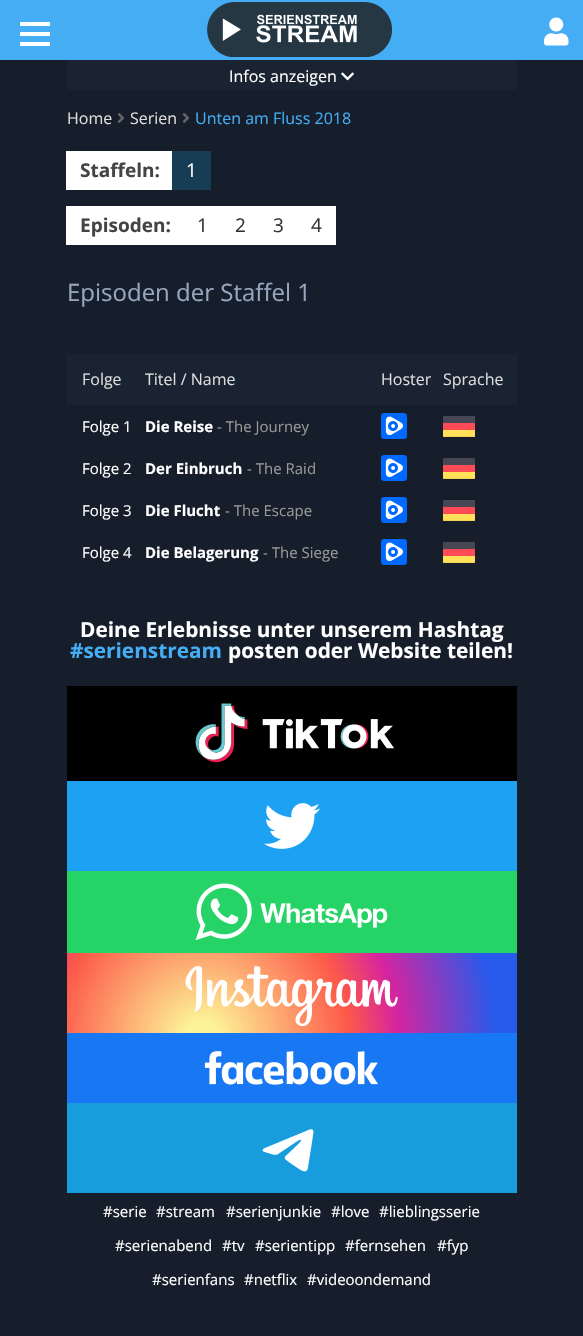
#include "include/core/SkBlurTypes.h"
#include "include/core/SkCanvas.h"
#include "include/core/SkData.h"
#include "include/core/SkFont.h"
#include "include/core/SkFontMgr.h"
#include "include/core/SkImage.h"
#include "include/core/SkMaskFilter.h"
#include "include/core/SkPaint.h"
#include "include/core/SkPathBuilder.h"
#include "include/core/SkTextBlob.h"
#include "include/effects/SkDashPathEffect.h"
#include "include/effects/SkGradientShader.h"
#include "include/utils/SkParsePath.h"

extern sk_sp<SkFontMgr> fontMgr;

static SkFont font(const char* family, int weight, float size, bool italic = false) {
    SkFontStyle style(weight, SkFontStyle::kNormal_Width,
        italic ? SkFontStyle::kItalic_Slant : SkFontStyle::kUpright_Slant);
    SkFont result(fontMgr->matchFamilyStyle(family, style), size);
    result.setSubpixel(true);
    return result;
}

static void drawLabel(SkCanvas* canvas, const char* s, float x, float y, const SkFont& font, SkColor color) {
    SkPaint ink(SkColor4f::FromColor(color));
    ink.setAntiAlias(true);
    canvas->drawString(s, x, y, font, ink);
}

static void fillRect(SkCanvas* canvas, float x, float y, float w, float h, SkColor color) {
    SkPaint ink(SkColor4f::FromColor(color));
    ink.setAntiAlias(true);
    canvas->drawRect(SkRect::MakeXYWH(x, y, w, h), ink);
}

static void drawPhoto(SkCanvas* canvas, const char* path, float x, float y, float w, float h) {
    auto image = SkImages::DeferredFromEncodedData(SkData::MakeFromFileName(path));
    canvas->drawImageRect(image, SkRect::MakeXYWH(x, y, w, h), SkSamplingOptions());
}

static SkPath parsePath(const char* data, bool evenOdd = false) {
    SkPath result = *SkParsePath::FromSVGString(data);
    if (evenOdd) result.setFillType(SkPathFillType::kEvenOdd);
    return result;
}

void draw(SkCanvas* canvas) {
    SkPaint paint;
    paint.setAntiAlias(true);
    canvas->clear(0xFF151E2A);
    fillRect(canvas, 0, 0, 583, 60, 0xFF44ADF3);
    fillRect(canvas, 20, 22, 30, 4, 0xFFFFFFFF);
    fillRect(canvas, 20, 32, 30, 4, 0xFFFFFFFF);
    fillRect(canvas, 20, 42, 30, 4, 0xFFFFFFFF);
    drawPhoto(canvas, "assets/img1.png", 207, 2, 185, 55);
    drawPhoto(canvas, "assets/img2.png", 544, 17, 25, 29);
    paint.setColor(0xFF192332);
    canvas->drawPath(parsePath("M67 60H517V86C517 88 515 90 513 90H71C69 90 67 88 67 86Z"), paint);
    SkFont font1 = font("Open Sans", 400, 16);
    drawLabel(canvas, "Infos anzeigen", 229, 82, font1, 0xFFFFFFFF);
    drawPhoto(canvas, "assets/img3.png", 341, 72, 13, 9);
    drawLabel(canvas, "Home", 67, 124, font1, 0xFFDDDDDD);
    drawPhoto(canvas, "assets/img4.png", 117, 113, 8, 10);
    drawLabel(canvas, "Serien", 130, 124, font1, 0xFFDDDDDD);
    drawPhoto(canvas, "assets/img4.png", 182, 113, 8, 10);
    drawLabel(canvas, "Unten am Fluss 2018", 195, 124, font1, 0xFF44ADF3);
    fillRect(canvas, 66, 151, 106, 39, 0xFFFFFFFF);
    SkFont font2 = font("Open Sans", 700, 19);
    drawLabel(canvas, "Staffeln:", 80, 177, font2, 0xFF444444);
    fillRect(canvas, 172, 151, 39, 39, 0xFF173D54);
    SkFont font3 = font("Open Sans", 400, 19);
    drawLabel(canvas, "1", 186, 177, font3, 0xFFFFFFFF);
    fillRect(canvas, 66, 206, 270, 39, 0xFFFFFFFF);
    drawLabel(canvas, "Episoden:", 80, 232, font2, 0xFF444444);
    drawLabel(canvas, "1", 197, 232, font3, 0xFF333333);
    drawLabel(canvas, "2", 235, 232, font3, 0xFF333333);
    drawLabel(canvas, "3", 273, 232, font3, 0xFF333333);
    drawLabel(canvas, "4", 311, 232, font3, 0xFF333333);
    SkFont font4 = font("Open Sans", 400, 24);
    drawLabel(canvas, "Episoden der Staffel 1", 67, 301, font4, 0xFF98A7C0);
    fillRect(canvas, 67, 354, 450, 51, 0xFF192332);
    drawLabel(canvas, "Folge", 82, 385, font1, 0xFFDDDDDD);
    drawLabel(canvas, "Titel / Name", 145, 385, font1, 0xFFDDDDDD);
    drawLabel(canvas, "Hoster", 381, 385, font1, 0xFFDDDDDD);
    drawLabel(canvas, "Sprache", 443, 385, font1, 0xFFDDDDDD);
    SkFont font5 = font("Open Sans", 400, 15);
    drawLabel(canvas, "Folge 1", 82, 432, font5, 0xFFFFFFFF);
    SkFont font6 = font("Open Sans", 700, 15);
    drawLabel(canvas, "Die Reise", 145, 432, font6, 0xFFFFFFFF);
    drawLabel(canvas, "- The Journey", 217, 432, font5, 0xFF999999);
    drawPhoto(canvas, "assets/img5.png", 381, 413, 26, 26);
    drawPhoto(canvas, "assets/img6.png", 443, 416, 32, 21);
    drawLabel(canvas, "Folge 2", 82, 474, font5, 0xFFFFFFFF);
    drawLabel(canvas, "Der Einbruch", 145, 474, font6, 0xFFFFFFFF);
    drawLabel(canvas, "- The Raid", 247, 474, font5, 0xFF999999);
    drawPhoto(canvas, "assets/img5.png", 381, 455, 26, 26);
    drawPhoto(canvas, "assets/img6.png", 443, 458, 32, 21);
    drawLabel(canvas, "Folge 3", 82, 516, font5, 0xFFFFFFFF);
    drawLabel(canvas, "Die Flucht", 145, 516, font6, 0xFFFFFFFF);
    drawLabel(canvas, "- The Escape", 225, 516, font5, 0xFF999999);
    drawPhoto(canvas, "assets/img5.png", 381, 497, 26, 26);
    drawPhoto(canvas, "assets/img6.png", 443, 500, 32, 21);
    drawLabel(canvas, "Folge 4", 82, 558, font5, 0xFFFFFFFF);
    drawLabel(canvas, "Die Belagerung", 145, 558, font6, 0xFFFFFFFF);
    drawLabel(canvas, "- The Siege", 263, 558, font5, 0xFF999999);
    drawPhoto(canvas, "assets/img5.png", 381, 539, 26, 26);
    drawPhoto(canvas, "assets/img6.png", 443, 542, 32, 21);
    SkFont font7 = font("Open Sans", 700, 20.8f);
    drawLabel(canvas, "Deine Erlebnisse unter unserem Hashtag", 80, 637, font7, 0xFFFFFFFF);
    drawLabel(canvas, "#serienstream", 70, 658, font7, 0xFF44ADF3);
    drawLabel(canvas, "posten oder Website teilen!", 228, 658, font7, 0xFFFFFFFF);
    fillRect(canvas, 67, 686, 450, 95, 0xFF000000);
    drawPhoto(canvas, "assets/img7.png", 195, 703, 200, 60);
    fillRect(canvas, 67, 781, 450, 90, 0xFF1DA1F2);
    drawPhoto(canvas, "assets/img8.png", 264, 803, 56, 46);
    fillRect(canvas, 67, 871, 450, 82, 0xFF25D366);
    drawPhoto(canvas, "assets/img9.png", 195, 883, 193, 58);
    {
        const SkColor colors[] = {0xFFFDF497, 0xFFFDF497, 0xFFFD5949, 0xFFD6249F, 0xFF285AEB};
        const float stops[] = {0, 0.05f, 0.45f, 0.6f, 0.9f};
        paint.setShader(SkGradientShader::MakeRadial({202, 1039}, 326, colors, stops, 5, SkTileMode::kClamp));
        paint.setAlpha(255);
    }
    canvas->drawRect(SkRect::MakeXYWH(67, 953, 450, 80), paint);
    drawPhoto(canvas, "assets/img10.png", 185, 965, 213, 62);
    fillRect(canvas, 67, 1033, 450, 70, 0xFF1877F2);
    drawPhoto(canvas, "assets/img11.png", 204, 1051, 174, 34);
    fillRect(canvas, 67, 1103, 450, 90, 0xFF179CDE);
    drawPhoto(canvas, "assets/img12.png", 262, 1129, 52, 43);
    drawLabel(canvas, "#serie", 103, 1217, font5, 0xFFFFFFFF);
    drawLabel(canvas, "#stream", 156, 1217, font5, 0xFFFFFFFF);
    drawLabel(canvas, "#serienjunkie", 226, 1217, font5, 0xFFFFFFFF);
    drawLabel(canvas, "#love", 331, 1217, font5, 0xFFFFFFFF);
    drawLabel(canvas, "#lieblingsserie", 379, 1217, font5, 0xFFFFFFFF);
    drawLabel(canvas, "#serienabend", 115, 1251, font5, 0xFFFFFFFF);
    drawLabel(canvas, "#tv", 222, 1251, font5, 0xFFFFFFFF);
    drawLabel(canvas, "#serientipp", 255, 1251, font5, 0xFFFFFFFF);
    drawLabel(canvas, "#fernsehen", 345, 1251, font5, 0xFFFFFFFF);
    drawLabel(canvas, "#fyp", 437, 1251, font5, 0xFFFFFFFF);
    drawLabel(canvas, "#serienfans", 152, 1285, font5, 0xFFFFFFFF);
    drawLabel(canvas, "#netflix", 244, 1285, font5, 0xFFFFFFFF);
    drawLabel(canvas, "#videoondemand", 307, 1285, font5, 0xFFFFFFFF);
}
